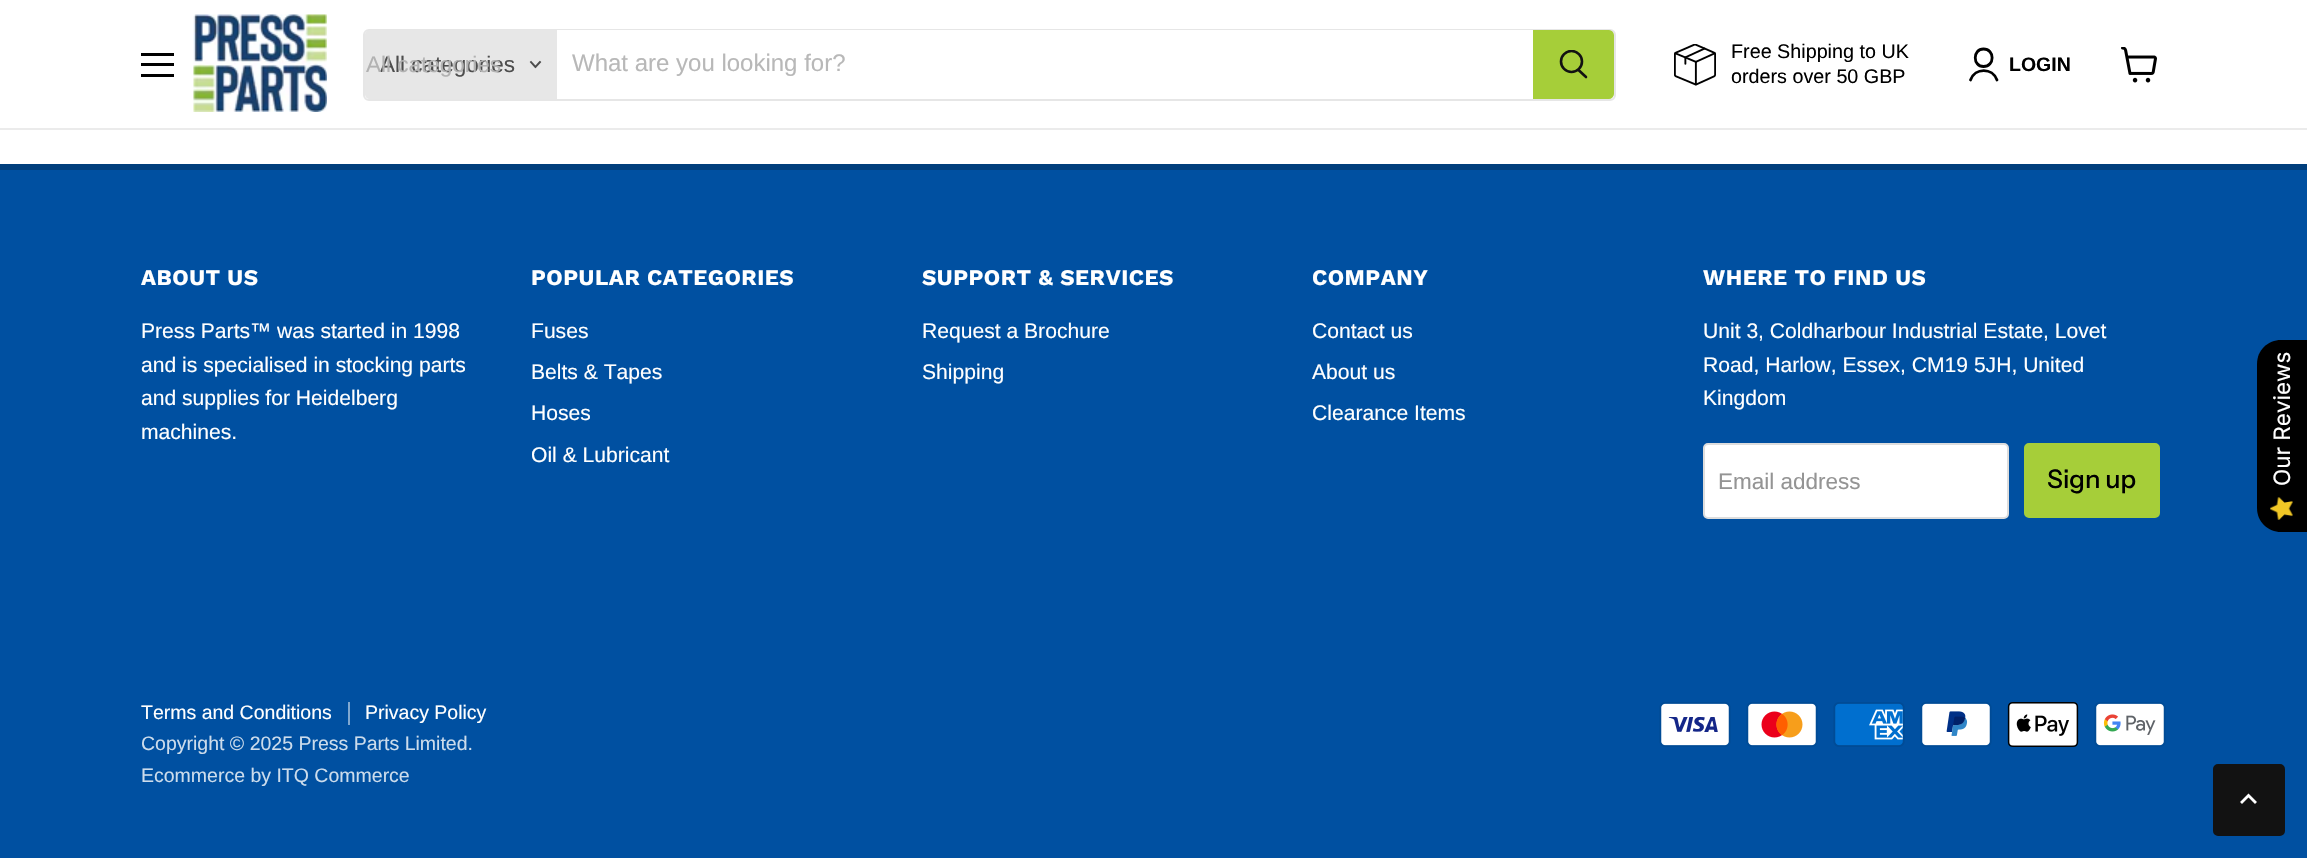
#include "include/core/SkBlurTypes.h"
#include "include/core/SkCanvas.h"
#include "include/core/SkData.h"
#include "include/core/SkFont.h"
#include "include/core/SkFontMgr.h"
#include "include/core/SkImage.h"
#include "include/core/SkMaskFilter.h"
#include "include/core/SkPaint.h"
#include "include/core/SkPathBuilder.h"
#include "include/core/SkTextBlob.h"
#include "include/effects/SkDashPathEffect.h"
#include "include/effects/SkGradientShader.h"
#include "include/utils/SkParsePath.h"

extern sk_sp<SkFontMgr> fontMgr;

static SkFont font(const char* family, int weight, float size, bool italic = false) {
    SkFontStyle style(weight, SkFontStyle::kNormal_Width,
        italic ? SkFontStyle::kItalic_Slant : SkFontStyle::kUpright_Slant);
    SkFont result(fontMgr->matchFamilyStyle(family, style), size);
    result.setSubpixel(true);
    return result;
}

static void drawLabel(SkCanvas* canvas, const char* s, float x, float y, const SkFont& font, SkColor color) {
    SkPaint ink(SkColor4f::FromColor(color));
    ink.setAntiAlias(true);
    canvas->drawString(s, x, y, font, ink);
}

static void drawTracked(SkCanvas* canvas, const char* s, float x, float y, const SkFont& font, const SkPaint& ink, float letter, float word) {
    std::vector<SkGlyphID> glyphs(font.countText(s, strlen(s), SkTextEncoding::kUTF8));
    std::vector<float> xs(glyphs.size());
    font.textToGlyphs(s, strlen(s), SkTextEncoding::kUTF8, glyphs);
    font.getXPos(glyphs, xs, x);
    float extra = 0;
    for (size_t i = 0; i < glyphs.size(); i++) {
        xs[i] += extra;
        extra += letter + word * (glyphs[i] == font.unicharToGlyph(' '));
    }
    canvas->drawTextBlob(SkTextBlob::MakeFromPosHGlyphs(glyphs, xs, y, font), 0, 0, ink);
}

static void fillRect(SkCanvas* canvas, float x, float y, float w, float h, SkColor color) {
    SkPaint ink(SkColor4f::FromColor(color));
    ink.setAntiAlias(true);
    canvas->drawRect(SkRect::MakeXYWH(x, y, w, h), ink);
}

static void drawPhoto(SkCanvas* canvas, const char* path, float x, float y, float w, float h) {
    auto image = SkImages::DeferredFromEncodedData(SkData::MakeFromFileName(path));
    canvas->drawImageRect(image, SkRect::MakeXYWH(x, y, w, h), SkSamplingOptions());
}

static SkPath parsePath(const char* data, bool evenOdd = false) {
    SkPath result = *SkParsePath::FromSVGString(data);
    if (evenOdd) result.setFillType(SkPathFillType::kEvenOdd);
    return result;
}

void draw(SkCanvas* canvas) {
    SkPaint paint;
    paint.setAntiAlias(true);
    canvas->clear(0xFFFFFFFF);
    fillRect(canvas, 0, 128, 2307, 2, 0xFFEBEBEB);
    fillRect(canvas, 141, 53, 33, 3, 0xFF000000);
    fillRect(canvas, 141, 63, 33, 3, 0xFF000000);
    fillRect(canvas, 141, 74, 33, 3, 0xFF000000);
    drawPhoto(canvas, "assets/img1.png", 193, 14, 134, 98);
    paint.setStroke(true);
    paint.setStrokeWidth(2);
    paint.setColor(0xFFE6E6E6);
    canvas->drawRoundRect(SkRect::MakeXYWH(364, 30, 1251, 70), 5, 5, paint);
    paint.setStroke(false);
    paint.setColor(0xFFE7E7E7);
    canvas->drawPath(parsePath("M370 30H557V99H370C367 99 365 97 365 94V35C365 32 367 30 370 30Z"), paint);
    SkFont font1 = font("Liberation Sans", 400, 22.5f);
    drawLabel(canvas, "All categories", 380, 72, font1, 0xFF4D4D4D);
    drawLabel(canvas, "All categories", 366, 72, font1, 0xFFB2B2B2);
    paint.setStroke(true);
    paint.setStrokeWidth(1.9f);
    paint.setStrokeCap(SkPaint::kSquare_Cap);
    paint.setColor(0xFF4D4D4D);
    canvas->drawPath(parsePath("M535.5 67L540 62M535.5 67L531 62"), paint);
    fillRect(canvas, 557, 30, 976, 1, 0xFFFFFFFF);
    SkFont font2 = font("Liberation Sans", 400, 24);
    drawLabel(canvas, "What are you looking for?", 572, 71, font2, 0xFFB8B8B8);
    paint.setStroke(false);
    paint.setColor(0xFFA6CE39);
    canvas->drawPath(parsePath("M1534 31H1609C1611 31 1613 33 1613 35V94C1613 96 1611 98 1609 98H1534Z"), paint);
    paint.setStroke(true);
    paint.setStrokeWidth(2);
    paint.setStrokeCap(SkPaint::kButt_Cap);
    canvas->drawPath(parsePath("M1534 31H1609C1611 31 1613 33 1613 35V94C1613 96 1611 98 1609 98H1534Z"), paint);
    paint.setStrokeWidth(2.6f);
    paint.setStrokeCap(SkPaint::kRound_Cap);
    paint.setColor(0xFF121212);
    canvas->drawPath(parsePath("M1586 77L1578.5 70"), paint);
    canvas->save();
    canvas->clipRect(SkRect::MakeXYWH(1559, 50, 30, 31));
    paint.setStrokeCap(SkPaint::kButt_Cap);
    canvas->drawCircle(1571.5f, 61.5f, 10.5f, paint);
    canvas->restore();
    drawPhoto(canvas, "assets/img2.png", 1674, 44, 42, 42);
    SkFont font3 = font("Liberation Sans", 400, 19.75f);
    drawLabel(canvas, "Free Shipping to UK", 1731, 58, font3, 0xFF000000);
    drawLabel(canvas, "orders over 50 GBP", 1731, 83, font3, 0xFF000000);
    paint.setStrokeWidth(2.8f);
    paint.setStrokeCap(SkPaint::kRound_Cap);
    paint.setStrokeJoin(SkPaint::kRound_Join);
    paint.setColor(0xFF000000);
    canvas->drawPath(parsePath("M1983.5 66.5C1995 66.5 1995 49 1983.5 49C1972.5 49 1972.5 66.5 1983.5 66.5ZM1997 80C1992.5 67.5 1975 67.5 1970.5 80"), paint);
    SkFont font4 = font("Liberation Sans", 700, 19.5f);
    drawLabel(canvas, "LOGIN", 2009, 71, font4, 0xFF000000);
    drawPhoto(canvas, "assets/img3.png", 2121, 47, 36, 36);
    fillRect(canvas, 0, 170, 2307, 688, 0xFF0050A1);
    fillRect(canvas, 0, 164, 2307, 6, 0xFF003E7C);
    SkFont font5 = font("Work Sans", 700, 22.25f);
    paint.setStroke(false);
    paint.setColor(0xFFFFFFFF);
    drawTracked(canvas, "ABOUT US", 141, 285, font5, paint, 0.5f, 0);
    SkFont font6 = font("Liberation Sans", 400, 21.1f);
    drawLabel(canvas, "Press Parts™ was started in 1998", 141, 338, font6, 0xFFFFFFFF);
    drawLabel(canvas, "and is specialised in stocking parts", 141, 372, font6, 0xFFFFFFFF);
    drawLabel(canvas, "and supplies for Heidelberg", 141, 405, font6, 0xFFFFFFFF);
    drawLabel(canvas, "machines.", 141, 439, font6, 0xFFFFFFFF);
    drawTracked(canvas, "POPULAR CATEGORIES", 531, 285, font5, paint, 0.5f, 0);
    drawLabel(canvas, "Fuses", 531, 338, font6, 0xFFFFFFFF);
    drawLabel(canvas, "Belts & Tapes", 531, 379, font6, 0xFFFFFFFF);
    drawLabel(canvas, "Hoses", 531, 420, font6, 0xFFFFFFFF);
    drawLabel(canvas, "Oil & Lubricant", 531, 462, font6, 0xFFFFFFFF);
    drawTracked(canvas, "SUPPORT & SERVICES", 922, 285, font5, paint, 0.5f, 0);
    drawLabel(canvas, "Request a Brochure", 922, 338, font6, 0xFFFFFFFF);
    drawLabel(canvas, "Shipping", 922, 379, font6, 0xFFFFFFFF);
    drawTracked(canvas, "COMPANY", 1312, 285, font5, paint, 0.5f, 0);
    drawLabel(canvas, "Contact us", 1312, 338, font6, 0xFFFFFFFF);
    drawLabel(canvas, "About us", 1312, 379, font6, 0xFFFFFFFF);
    drawLabel(canvas, "Clearance Items", 1312, 420, font6, 0xFFFFFFFF);
    drawTracked(canvas, "WHERE TO FIND US", 1703, 285, font5, paint, 0.5f, 0);
    drawLabel(canvas, "Unit 3, Coldharbour Industrial Estate, Lovet", 1703, 338, font6, 0xFFFFFFFF);
    drawLabel(canvas, "Road, Harlow, Essex, CM19 5JH, United", 1703, 372, font6, 0xFFFFFFFF);
    drawLabel(canvas, "Kingdom", 1703, 405, font6, 0xFFFFFFFF);
    canvas->drawRoundRect(SkRect::MakeXYWH(1704, 444, 304, 74), 4, 4, paint);
    paint.setStroke(true);
    paint.setStrokeWidth(2);
    paint.setStrokeCap(SkPaint::kButt_Cap);
    paint.setStrokeJoin(SkPaint::kMiter_Join);
    paint.setColor(0xFFDDDDDD);
    canvas->drawRoundRect(SkRect::MakeXYWH(1704, 444, 304, 74), 4, 4, paint);
    drawLabel(canvas, "Email address", 1718, 489, font1, 0xFF949494);
    paint.setStroke(false);
    paint.setColor(0xFFA6CE39);
    canvas->drawRoundRect(SkRect::MakeXYWH(2025, 444, 134, 73), 4, 4, paint);
    paint.setStroke(true);
    canvas->drawRoundRect(SkRect::MakeXYWH(2025, 444, 134, 73), 4, 4, paint);
    SkFont font7 = font("Instrument Sans", 500, 25.5f);
    drawLabel(canvas, "Sign up", 2047, 488, font7, 0xFF000000);
    fillRect(canvas, 348, 702, 2, 23, 0xFF80A8D0);
    SkFont font8 = font("Liberation Sans", 400, 19.5f);
    drawLabel(canvas, "Terms and Conditions", 141, 719, font8, 0xFFFFFFFF);
    drawLabel(canvas, "Privacy Policy", 365, 719, font8, 0xFFFFFFFF);
    drawLabel(canvas, "Copyright © 2025 Press Parts Limited.", 141, 750, font8, 0xFFCCDCEC);
    drawLabel(canvas, "Ecommerce by ITQ Commerce", 141, 782, font8, 0xFFCCDCEC);
    drawPhoto(canvas, "assets/img4.png", 1659, 702, 72, 45);
    drawPhoto(canvas, "assets/img5.png", 1746, 702, 72, 45);
    drawPhoto(canvas, "assets/img6.png", 1833, 702, 72, 45);
    drawPhoto(canvas, "assets/img7.png", 1920, 702, 72, 45);
    drawPhoto(canvas, "assets/img8.png", 2007, 702, 72, 45);
    drawPhoto(canvas, "assets/img9.png", 2094, 702, 72, 45);
    paint.setStroke(false);
    paint.setColor(0xFF000000);
    canvas->drawPath(parsePath("M2257 508V364C2257 350 2268 340 2281 340H2307V532H2281C2268 532 2257 522 2257 508Z"), paint);
    SkFont font9 = font("Inter", 400, 22.5f);
    canvas->save();
    canvas->rotate(-90, 2290, 486);
    drawLabel(canvas, "Our Reviews", 2290, 486, font9, 0xFFFFFFFF);
    canvas->restore();
    drawPhoto(canvas, "assets/img10.png", 2270, 497, 23, 23);
    paint.setColor(0xFF121212);
    canvas->drawRoundRect(SkRect::MakeXYWH(2214, 765, 70, 70), 4, 4, paint);
    paint.setStroke(true);
    canvas->drawRoundRect(SkRect::MakeXYWH(2214, 765, 70, 70), 4, 4, paint);
    paint.setStrokeWidth(2.8f);
    paint.setStrokeCap(SkPaint::kSquare_Cap);
    paint.setColor(0xFFFFFFFF);
    canvas->drawPath(parsePath("M2248.5 795.5L2242 802M2248.5 795.5L2255 802"), paint);
}
